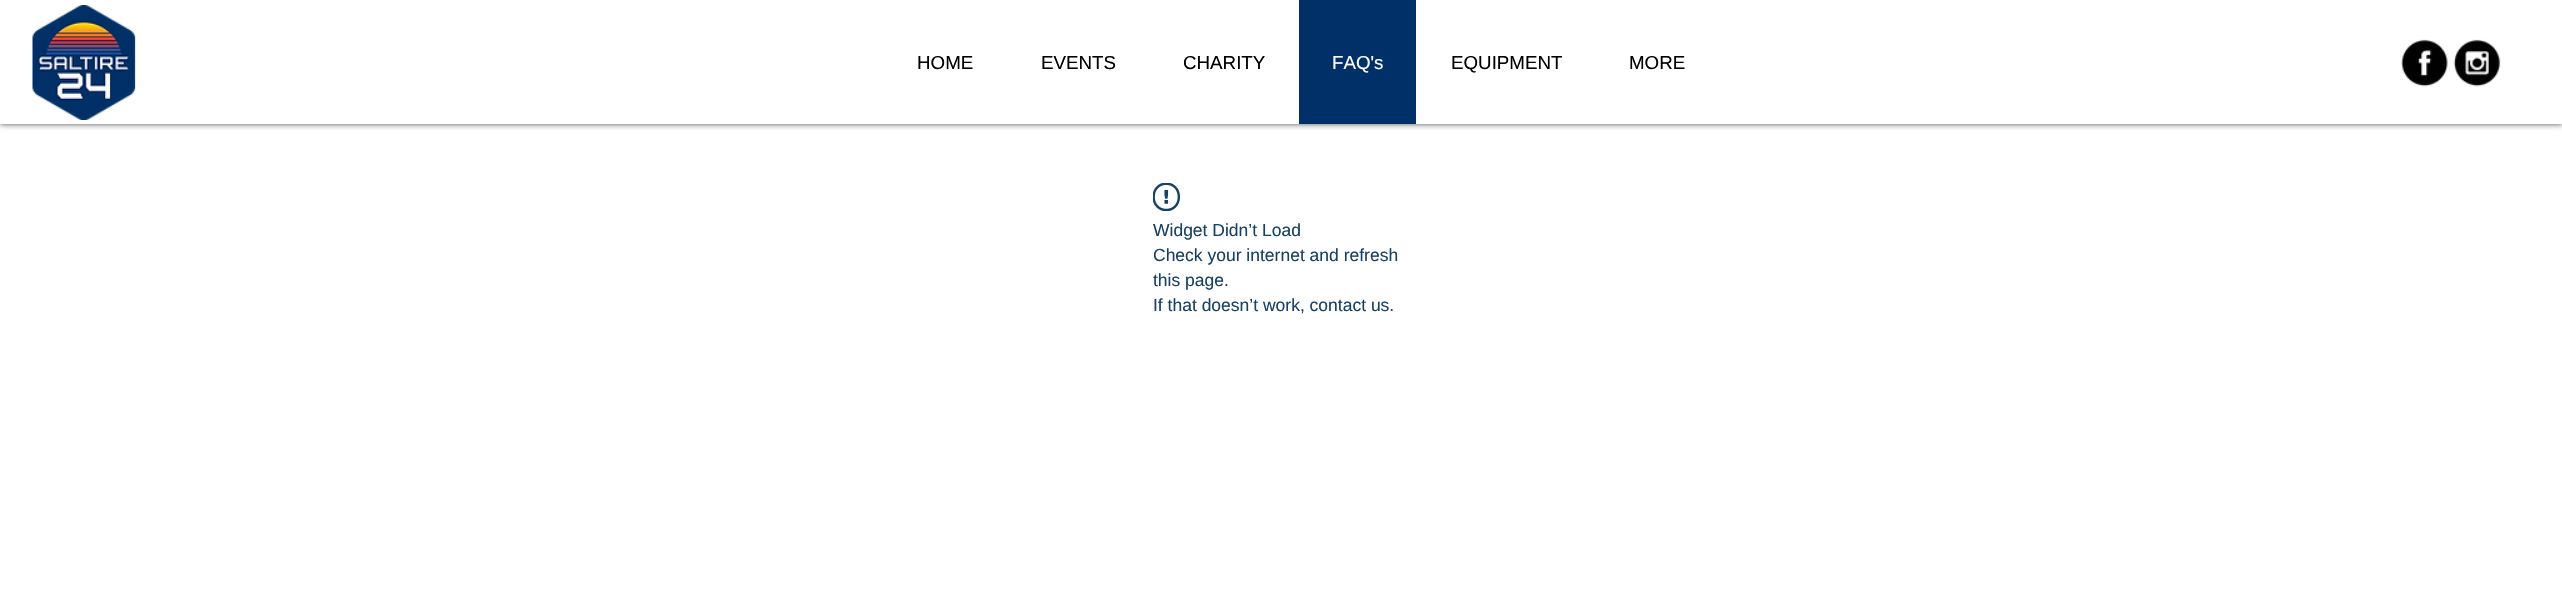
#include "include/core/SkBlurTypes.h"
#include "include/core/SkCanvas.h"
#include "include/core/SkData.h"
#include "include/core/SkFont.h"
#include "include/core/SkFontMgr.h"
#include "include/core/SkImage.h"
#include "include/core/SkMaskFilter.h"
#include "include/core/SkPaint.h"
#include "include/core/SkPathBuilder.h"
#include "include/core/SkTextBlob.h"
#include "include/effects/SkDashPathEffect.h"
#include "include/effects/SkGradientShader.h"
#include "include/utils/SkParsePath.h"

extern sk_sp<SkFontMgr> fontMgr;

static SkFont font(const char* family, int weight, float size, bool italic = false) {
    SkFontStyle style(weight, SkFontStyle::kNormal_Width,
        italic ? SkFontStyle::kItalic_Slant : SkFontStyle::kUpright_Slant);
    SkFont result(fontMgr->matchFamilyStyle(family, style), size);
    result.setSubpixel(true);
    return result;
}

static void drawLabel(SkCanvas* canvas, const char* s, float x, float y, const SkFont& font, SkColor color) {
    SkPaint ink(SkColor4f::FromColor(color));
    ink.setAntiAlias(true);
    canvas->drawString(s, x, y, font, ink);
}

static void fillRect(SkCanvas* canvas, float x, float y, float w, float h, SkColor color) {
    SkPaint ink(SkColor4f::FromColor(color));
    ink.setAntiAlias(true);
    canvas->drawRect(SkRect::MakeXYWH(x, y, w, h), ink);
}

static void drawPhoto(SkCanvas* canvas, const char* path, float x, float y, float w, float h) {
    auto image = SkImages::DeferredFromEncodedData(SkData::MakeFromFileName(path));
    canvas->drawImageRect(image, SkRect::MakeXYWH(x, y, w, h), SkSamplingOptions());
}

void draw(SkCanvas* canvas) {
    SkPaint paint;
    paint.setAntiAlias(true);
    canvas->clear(0xFFFFFFFF);
    paint.setColor(0xB3000000);
    paint.setMaskFilter(SkMaskFilter::MakeBlur(kNormal_SkBlurStyle, 3));
    canvas->drawRect(SkRect::MakeXYWH(0, 0, 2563, 124), paint);
    paint.setMaskFilter(nullptr);
    fillRect(canvas, 0, 0, 2562, 124, 0xFFFFFFFF);
    drawPhoto(canvas, "assets/img1.png", 32, 5, 104, 115);
    SkFont font1 = font("Liberation Sans", 400, 18.75f);
    drawLabel(canvas, "HOME", 917, 69, font1, 0xFF000000);
    drawLabel(canvas, "EVENTS", 1041, 69, font1, 0xFF000000);
    drawLabel(canvas, "CHARITY", 1183, 69, font1, 0xFF000000);
    fillRect(canvas, 1299, 0, 117, 124, 0xFF003067);
    drawLabel(canvas, "FAQ's", 1332, 69, font1, 0xFFFFFFFF);
    drawLabel(canvas, "EQUIPMENT", 1451, 69, font1, 0xFF000000);
    drawLabel(canvas, "MORE", 1629, 69, font1, 0xFF000000);
    drawPhoto(canvas, "assets/img2.png", 2401, 39, 47, 48);
    drawPhoto(canvas, "assets/img3.png", 2453, 39, 48, 48);
    drawPhoto(canvas, "assets/img4.png", 1153, 183, 27, 28);
    SkFont font2 = font("Liberation Sans", 400, 17.5f);
    drawLabel(canvas, "Widget Didn’t Load", 1153, 236, font2, 0xFF174165);
    drawLabel(canvas, "Check your internet and refresh", 1153, 261, font2, 0xFF174165);
    drawLabel(canvas, "this page.", 1153, 286, font2, 0xFF174165);
    drawLabel(canvas, "If that doesn’t work, contact us.", 1153, 311, font2, 0xFF174165);
}
